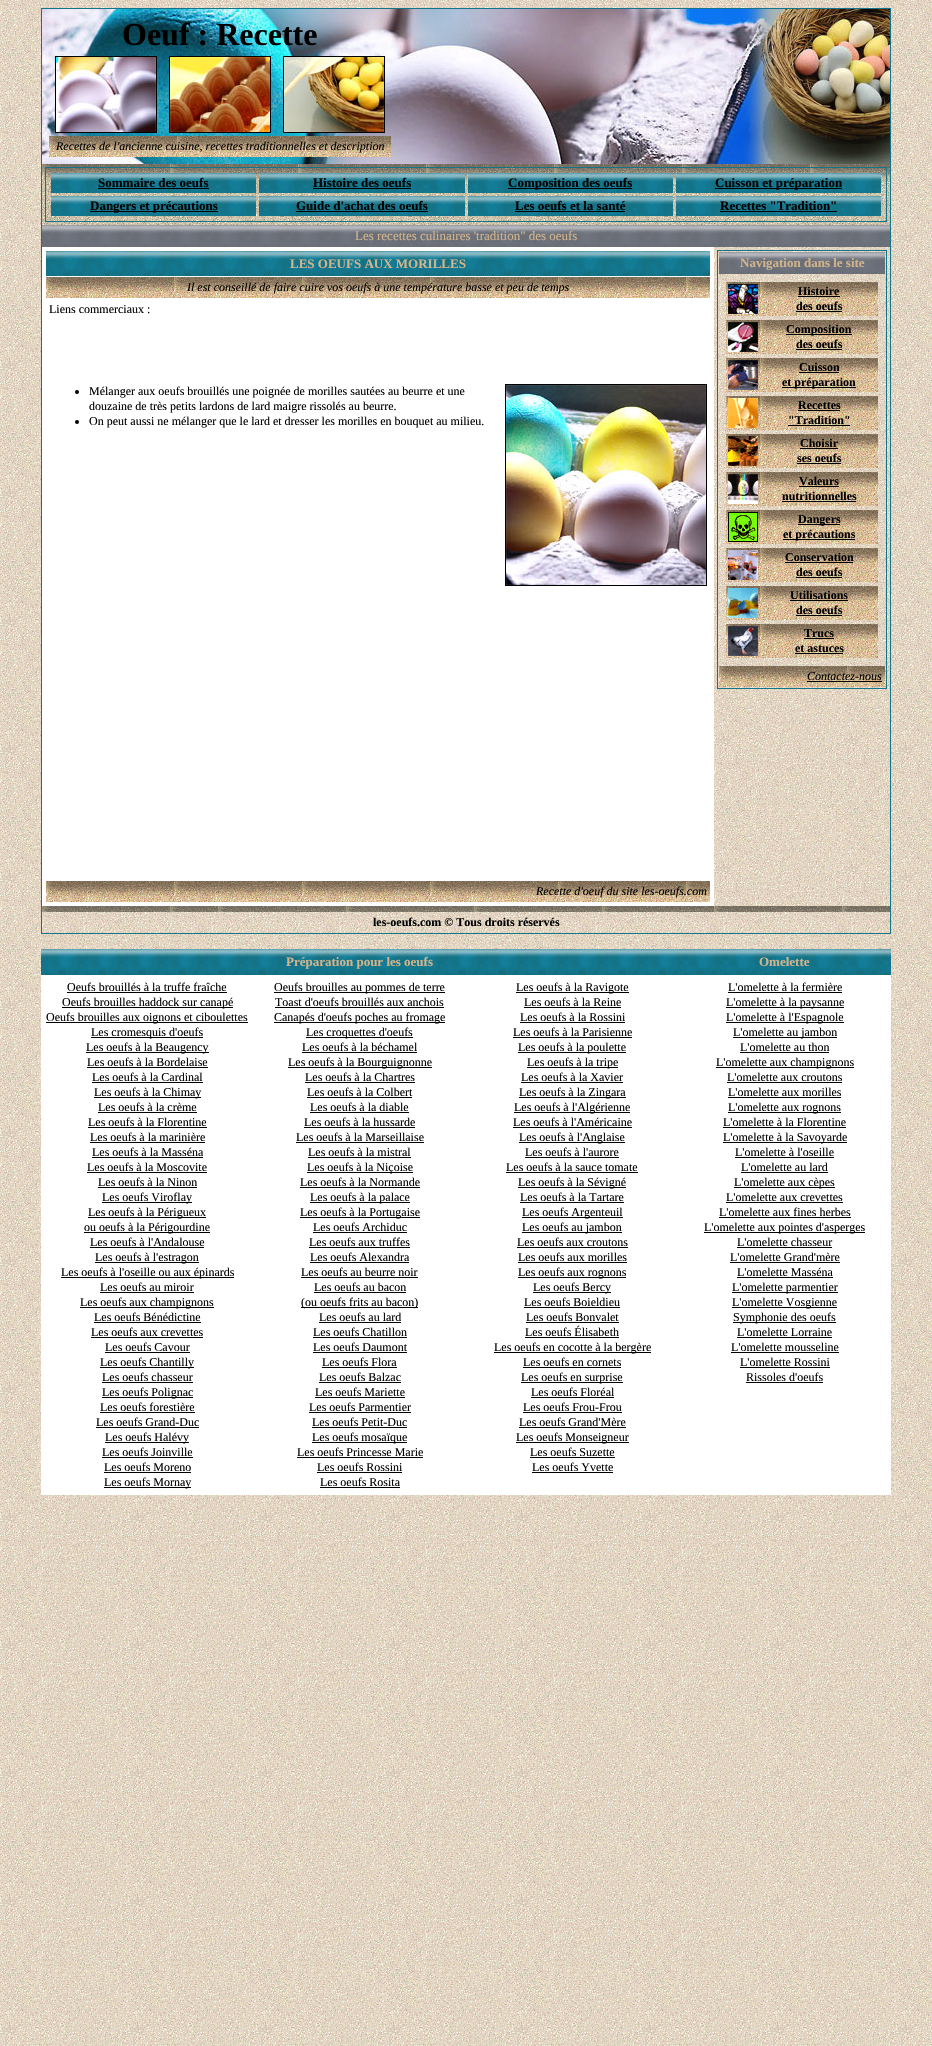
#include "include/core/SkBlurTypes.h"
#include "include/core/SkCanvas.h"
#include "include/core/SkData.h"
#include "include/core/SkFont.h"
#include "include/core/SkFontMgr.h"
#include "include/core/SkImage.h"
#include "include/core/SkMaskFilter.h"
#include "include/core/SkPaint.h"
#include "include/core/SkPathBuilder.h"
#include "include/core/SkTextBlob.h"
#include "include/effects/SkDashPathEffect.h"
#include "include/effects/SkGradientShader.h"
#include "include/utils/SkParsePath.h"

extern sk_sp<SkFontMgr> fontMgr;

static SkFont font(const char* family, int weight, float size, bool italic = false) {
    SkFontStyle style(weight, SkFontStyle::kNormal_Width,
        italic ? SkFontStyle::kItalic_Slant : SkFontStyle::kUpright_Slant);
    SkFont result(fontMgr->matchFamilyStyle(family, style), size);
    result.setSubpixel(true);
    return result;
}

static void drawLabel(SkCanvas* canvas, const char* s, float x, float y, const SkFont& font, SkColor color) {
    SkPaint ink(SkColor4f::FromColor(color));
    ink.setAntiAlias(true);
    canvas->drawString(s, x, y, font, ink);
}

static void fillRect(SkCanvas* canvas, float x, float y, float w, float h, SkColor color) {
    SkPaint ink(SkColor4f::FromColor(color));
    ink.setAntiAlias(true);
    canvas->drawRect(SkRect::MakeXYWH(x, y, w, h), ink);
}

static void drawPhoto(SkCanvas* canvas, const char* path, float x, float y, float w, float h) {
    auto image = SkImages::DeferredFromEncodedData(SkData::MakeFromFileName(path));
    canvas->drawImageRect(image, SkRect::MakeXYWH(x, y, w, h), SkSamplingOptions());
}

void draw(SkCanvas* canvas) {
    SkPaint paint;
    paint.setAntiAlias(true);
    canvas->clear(0xFFFFFFFF);
    drawPhoto(canvas, "assets/img1.png", 0, 0, 932, 2046);
    paint.setStroke(true);
    paint.setStrokeWidth(1);
    paint.setColor(0xFF147489);
    canvas->drawRect(SkRect::MakeXYWH(41.5f, 8.5f, 849, 925), paint);
    drawPhoto(canvas, "assets/img2.png", 42, 9, 848, 155);
    SkFont font1 = font("Liberation Serif", 700, 32);
    drawLabel(canvas, "Oeuf : Recette", 122, 45, font1, 0xFF000000);
    paint.setColor(0xFF000000);
    canvas->drawRect(SkRect::MakeXYWH(55.5f, 56.5f, 101, 76), paint);
    drawPhoto(canvas, "assets/img3.png", 56, 57, 100, 75);
    canvas->drawRect(SkRect::MakeXYWH(169.5f, 56.5f, 101, 76), paint);
    drawPhoto(canvas, "assets/img4.png", 170, 57, 100, 75);
    canvas->drawRect(SkRect::MakeXYWH(283.5f, 56.5f, 101, 76), paint);
    drawPhoto(canvas, "assets/img5.png", 284, 57, 100, 75);
    drawPhoto(canvas, "assets/img6.png", 49, 136, 342, 21);
    SkFont font2 = font("Liberation Serif", 400, 12, true);
    drawLabel(canvas, "Recettes de l'ancienne cuisine, recettes traditionnelles et description", 56, 150, font2, 0xFF000000);
    drawPhoto(canvas, "assets/img7.png", 42, 164, 848, 61);
    paint.setColor(0xFF147489);
    canvas->drawRect(SkRect::MakeXYWH(45.5f, 167.5f, 841, 54), paint);
    drawPhoto(canvas, "assets/img8.png", 51, 173, 205, 20);
    SkFont font3 = font("Liberation Serif", 700, 13);
    drawLabel(canvas, "Sommaire des oeufs", 98, 187, font3, 0xFF000000);
    fillRect(canvas, 98, 188, 111, 1, 0xFF000000);
    drawPhoto(canvas, "assets/img9.png", 259, 173, 206, 20);
    drawLabel(canvas, "Histoire des oeufs", 313, 187, font3, 0xFF000000);
    fillRect(canvas, 313, 188, 98, 1, 0xFF000000);
    drawPhoto(canvas, "assets/img8.png", 468, 173, 205, 20);
    fillRect(canvas, 508, 188, 124, 1, 0xFF000000);
    drawLabel(canvas, "Composition des oeufs", 508, 187, font3, 0xFF000000);
    drawPhoto(canvas, "assets/img8.png", 676, 173, 205, 20);
    fillRect(canvas, 715, 188, 127, 1, 0xFF000000);
    drawLabel(canvas, "Cuisson et préparation", 715, 187, font3, 0xFF000000);
    drawPhoto(canvas, "assets/img8.png", 51, 196, 205, 20);
    fillRect(canvas, 90, 211, 128, 1, 0xFF000000);
    drawLabel(canvas, "Dangers et précautions", 90, 210, font3, 0xFF000000);
    drawPhoto(canvas, "assets/img9.png", 259, 196, 206, 20);
    drawLabel(canvas, "Guide d'achat des oeufs", 296, 210, font3, 0xFF000000);
    fillRect(canvas, 296, 211, 132, 1, 0xFF000000);
    drawPhoto(canvas, "assets/img8.png", 468, 196, 205, 20);
    drawLabel(canvas, "Les oeufs et la santé", 515, 210, font3, 0xFF000000);
    fillRect(canvas, 515, 211, 110, 1, 0xFF000000);
    drawPhoto(canvas, "assets/img8.png", 676, 196, 205, 20);
    drawLabel(canvas, "Recettes \"Tradition\"", 720, 210, font3, 0xFF000000);
    fillRect(canvas, 720, 211, 117, 1, 0xFF000000);
    drawPhoto(canvas, "assets/img10.png", 42, 225, 848, 22);
    SkFont font4 = font("Liberation Serif", 400, 13);
    drawLabel(canvas, "Les recettes culinaires 'tradition\" des oeufs", 355, 240, font4, 0xFFD2B48C);
    fillRect(canvas, 42, 247, 672, 659, 0xFFFFFFFF);
    drawPhoto(canvas, "assets/img11.png", 46, 251, 664, 25);
    drawLabel(canvas, "LES OEUFS AUX MORILLES", 290, 268, font3, 0xFFD2B48C);
    drawPhoto(canvas, "assets/img12.png", 46, 277, 664, 21);
    drawLabel(canvas, "Il est conseillé de faire cuire vos oeufs à une température basse et peu de temps", 187, 291, font2, 0xFF000000);
    SkFont font5 = font("Liberation Serif", 400, 12);
    drawLabel(canvas, "Liens commerciaux :", 49, 313, font5, 0xFF000000);
    paint.setStroke(false);
    paint.setColor(0xFF000000);
    canvas->drawCircle(77, 392, 2, paint);
    drawLabel(canvas, "Mélanger aux oeufs brouillés une poignée de morilles sautées au beurre et une", 89, 395, font5, 0xFF000000);
    paint.setStroke(true);
    canvas->drawRect(SkRect::MakeXYWH(505.5f, 384.5f, 201, 201), paint);
    drawPhoto(canvas, "assets/img13.png", 506, 385, 200, 200);
    drawLabel(canvas, "douzaine de très petits lardons de lard maigre rissolés au beurre.", 89, 410, font5, 0xFF000000);
    paint.setStroke(false);
    canvas->drawCircle(77, 422, 2, paint);
    drawLabel(canvas, "On peut aussi ne mélanger que le lard et dresser les morilles en bouquet au milieu.", 89, 425, font5, 0xFF000000);
    drawPhoto(canvas, "assets/img12.png", 46, 881, 664, 21);
    drawLabel(canvas, "Recette d'oeuf du site les-oeufs.com", 536, 895, font2, 0xFF000000);
    drawPhoto(canvas, "assets/img14.png", 714, 247, 176, 659);
    paint.setStroke(true);
    paint.setColor(0xFF147489);
    canvas->drawRect(SkRect::MakeXYWH(717.5f, 250.5f, 169, 438), paint);
    drawPhoto(canvas, "assets/img15.png", 719, 252, 166, 22);
    drawLabel(canvas, "Navigation dans le site", 740, 267, font3, 0xFFD2B48C);
    drawPhoto(canvas, "assets/img16.png", 719, 275, 166, 390);
    drawPhoto(canvas, "assets/img17.png", 726, 282, 34, 34);
    drawPhoto(canvas, "assets/img18.png", 728, 284, 30, 30);
    drawPhoto(canvas, "assets/img19.png", 760, 282, 118, 34);
    SkFont font6 = font("Liberation Serif", 700, 12);
    drawLabel(canvas, "Histoire", 798, 295, font6, 0xFF000000);
    fillRect(canvas, 798, 296, 42, 1, 0xFF000000);
    drawLabel(canvas, "des oeufs", 796, 310, font6, 0xFF000000);
    fillRect(canvas, 796, 311, 46, 1, 0xFF000000);
    drawPhoto(canvas, "assets/img17.png", 726, 320, 34, 34);
    drawPhoto(canvas, "assets/img20.png", 728, 322, 30, 30);
    drawPhoto(canvas, "assets/img19.png", 760, 320, 118, 34);
    fillRect(canvas, 786, 334, 66, 1, 0xFF000000);
    drawLabel(canvas, "Composition", 786, 333, font6, 0xFF000000);
    drawLabel(canvas, "des oeufs", 796, 348, font6, 0xFF000000);
    fillRect(canvas, 796, 349, 46, 1, 0xFF000000);
    drawPhoto(canvas, "assets/img17.png", 726, 358, 34, 34);
    drawPhoto(canvas, "assets/img21.png", 728, 360, 30, 30);
    drawPhoto(canvas, "assets/img19.png", 760, 358, 118, 34);
    drawLabel(canvas, "Cuisson", 799, 371, font6, 0xFF000000);
    fillRect(canvas, 799, 372, 40, 1, 0xFF000000);
    fillRect(canvas, 782, 387, 74, 1, 0xFF000000);
    drawLabel(canvas, "et préparation", 782, 386, font6, 0xFF000000);
    drawPhoto(canvas, "assets/img17.png", 726, 396, 34, 34);
    drawPhoto(canvas, "assets/img22.png", 728, 398, 30, 30);
    drawPhoto(canvas, "assets/img19.png", 760, 396, 118, 34);
    drawLabel(canvas, "Recettes", 798, 409, font6, 0xFF000000);
    fillRect(canvas, 798, 410, 42, 1, 0xFF000000);
    drawLabel(canvas, "\"Tradition\"", 788, 424, font6, 0xFF000000);
    fillRect(canvas, 788, 425, 62, 1, 0xFF000000);
    drawPhoto(canvas, "assets/img17.png", 726, 434, 34, 34);
    drawPhoto(canvas, "assets/img23.png", 728, 436, 30, 30);
    drawPhoto(canvas, "assets/img19.png", 760, 434, 118, 34);
    drawLabel(canvas, "Choisir", 800, 447, font6, 0xFF000000);
    fillRect(canvas, 800, 448, 38, 1, 0xFF000000);
    drawLabel(canvas, "ses oeufs", 797, 462, font6, 0xFF000000);
    fillRect(canvas, 797, 463, 44, 1, 0xFF000000);
    drawPhoto(canvas, "assets/img17.png", 726, 472, 34, 34);
    drawPhoto(canvas, "assets/img24.png", 728, 474, 30, 30);
    drawPhoto(canvas, "assets/img19.png", 760, 472, 118, 34);
    drawLabel(canvas, "Valeurs", 799, 485, font6, 0xFF000000);
    fillRect(canvas, 799, 486, 40, 1, 0xFF000000);
    drawLabel(canvas, "nutritionnelles", 782, 500, font6, 0xFF000000);
    fillRect(canvas, 782, 501, 74, 1, 0xFF000000);
    drawPhoto(canvas, "assets/img17.png", 726, 510, 34, 34);
    drawPhoto(canvas, "assets/img25.png", 728, 512, 30, 30);
    drawPhoto(canvas, "assets/img19.png", 760, 510, 118, 34);
    fillRect(canvas, 798, 524, 42, 1, 0xFF000000);
    drawLabel(canvas, "Dangers", 798, 523, font6, 0xFF000000);
    fillRect(canvas, 783, 539, 72, 1, 0xFF000000);
    drawLabel(canvas, "et précautions", 783, 538, font6, 0xFF000000);
    drawPhoto(canvas, "assets/img17.png", 726, 548, 34, 34);
    drawPhoto(canvas, "assets/img26.png", 728, 550, 30, 30);
    drawPhoto(canvas, "assets/img19.png", 760, 548, 118, 34);
    drawLabel(canvas, "Conservation", 785, 561, font6, 0xFF000000);
    fillRect(canvas, 785, 562, 68, 1, 0xFF000000);
    drawLabel(canvas, "des oeufs", 796, 576, font6, 0xFF000000);
    fillRect(canvas, 796, 577, 46, 1, 0xFF000000);
    drawPhoto(canvas, "assets/img17.png", 726, 586, 34, 34);
    drawPhoto(canvas, "assets/img27.png", 728, 588, 30, 30);
    drawPhoto(canvas, "assets/img19.png", 760, 586, 118, 34);
    drawLabel(canvas, "Utilisations", 790, 599, font6, 0xFF000000);
    fillRect(canvas, 790, 600, 58, 1, 0xFF000000);
    drawLabel(canvas, "des oeufs", 796, 614, font6, 0xFF000000);
    fillRect(canvas, 796, 615, 46, 1, 0xFF000000);
    drawPhoto(canvas, "assets/img17.png", 726, 624, 34, 34);
    drawPhoto(canvas, "assets/img28.png", 728, 626, 30, 30);
    drawPhoto(canvas, "assets/img19.png", 760, 624, 118, 34);
    drawLabel(canvas, "Trucs", 804, 637, font6, 0xFF000000);
    fillRect(canvas, 804, 638, 30, 1, 0xFF000000);
    drawLabel(canvas, "et astuces", 795, 652, font6, 0xFF000000);
    fillRect(canvas, 795, 653, 48, 1, 0xFF000000);
    drawPhoto(canvas, "assets/img29.png", 719, 666, 166, 21);
    drawLabel(canvas, "Contactez-nous", 807, 680, font2, 0xFF000000);
    fillRect(canvas, 807, 681, 75, 1, 0xFF000000);
    drawPhoto(canvas, "assets/img30.png", 42, 906, 176, 6);
    drawPhoto(canvas, "assets/img31.png", 218, 906, 496, 6);
    drawPhoto(canvas, "assets/img30.png", 714, 906, 176, 6);
    drawPhoto(canvas, "assets/img32.png", 42, 912, 848, 21);
    drawLabel(canvas, "les-oeufs.com © Tous droits réservés", 373, 926, font6, 0xFF000000);
    drawPhoto(canvas, "assets/img33.png", 41, 949, 638, 26);
    drawLabel(canvas, "Préparation pour les oeufs", 286, 966, font3, 0xFFD2B48C);
    drawPhoto(canvas, "assets/img34.png", 679, 949, 212, 26);
    drawLabel(canvas, "Omelette", 759, 966, font3, 0xFFD2B48C);
    fillRect(canvas, 41, 975, 850, 520, 0xFFFFFFFF);
    drawLabel(canvas, "Oeufs brouillés à la truffe fraîche", 67, 991, font5, 0xFF000000);
    fillRect(canvas, 67, 992, 160, 1, 0xFF000000);
    fillRect(canvas, 62, 1007, 171, 1, 0xFF000000);
    drawLabel(canvas, "Oeufs brouilles haddock sur canapé", 62, 1006, font5, 0xFF000000);
    fillRect(canvas, 46, 1022, 202, 1, 0xFF000000);
    drawLabel(canvas, "Oeufs brouilles aux oignons et ciboulettes", 46, 1021, font5, 0xFF000000);
    fillRect(canvas, 91, 1037, 112, 1, 0xFF000000);
    drawLabel(canvas, "Les cromesquis d'oeufs", 91, 1036, font5, 0xFF000000);
    fillRect(canvas, 86, 1052, 123, 1, 0xFF000000);
    drawLabel(canvas, "Les oeufs à la Beaugency", 86, 1051, font5, 0xFF000000);
    drawLabel(canvas, "Les oeufs à la Bordelaise", 87, 1066, font5, 0xFF000000);
    fillRect(canvas, 87, 1067, 121, 1, 0xFF000000);
    drawLabel(canvas, "Les oeufs à la Cardinal", 92, 1081, font5, 0xFF000000);
    fillRect(canvas, 92, 1082, 111, 1, 0xFF000000);
    fillRect(canvas, 94, 1097, 107, 1, 0xFF000000);
    drawLabel(canvas, "Les oeufs à la Chimay", 94, 1096, font5, 0xFF000000);
    drawLabel(canvas, "Les oeufs à la crème", 98, 1111, font5, 0xFF000000);
    fillRect(canvas, 98, 1112, 99, 1, 0xFF000000);
    drawLabel(canvas, "Les oeufs à la Florentine", 88, 1126, font5, 0xFF000000);
    fillRect(canvas, 88, 1127, 119, 1, 0xFF000000);
    drawLabel(canvas, "Les oeufs à la marinière", 90, 1141, font5, 0xFF000000);
    fillRect(canvas, 90, 1142, 115, 1, 0xFF000000);
    drawLabel(canvas, "Les oeufs à la Masséna", 92, 1156, font5, 0xFF000000);
    fillRect(canvas, 92, 1157, 111, 1, 0xFF000000);
    drawLabel(canvas, "Les oeufs à la Moscovite", 87, 1171, font5, 0xFF000000);
    fillRect(canvas, 87, 1172, 120, 1, 0xFF000000);
    drawLabel(canvas, "Les oeufs à la Ninon", 98, 1186, font5, 0xFF000000);
    fillRect(canvas, 98, 1187, 99, 1, 0xFF000000);
    fillRect(canvas, 102, 1202, 90, 1, 0xFF000000);
    drawLabel(canvas, "Les oeufs Viroflay", 102, 1201, font5, 0xFF000000);
    fillRect(canvas, 88, 1217, 118, 1, 0xFF000000);
    drawLabel(canvas, "Les oeufs à la Périgueux", 88, 1216, font5, 0xFF000000);
    fillRect(canvas, 84, 1232, 126, 1, 0xFF000000);
    drawLabel(canvas, "ou oeufs à la Périgourdine", 84, 1231, font5, 0xFF000000);
    drawLabel(canvas, "Les oeufs à l'Andalouse", 90, 1246, font5, 0xFF000000);
    fillRect(canvas, 90, 1247, 114, 1, 0xFF000000);
    fillRect(canvas, 95, 1262, 104, 1, 0xFF000000);
    drawLabel(canvas, "Les oeufs à l'estragon", 95, 1261, font5, 0xFF000000);
    fillRect(canvas, 61, 1277, 173, 1, 0xFF000000);
    drawLabel(canvas, "Les oeufs à l'oseille ou aux épinards", 61, 1276, font5, 0xFF000000);
    drawLabel(canvas, "Les oeufs au miroir", 100, 1291, font5, 0xFF000000);
    fillRect(canvas, 100, 1292, 94, 1, 0xFF000000);
    fillRect(canvas, 80, 1307, 134, 1, 0xFF000000);
    drawLabel(canvas, "Les oeufs aux champignons", 80, 1306, font5, 0xFF000000);
    drawLabel(canvas, "Les oeufs Bénédictine", 94, 1321, font5, 0xFF000000);
    fillRect(canvas, 94, 1322, 107, 1, 0xFF000000);
    drawLabel(canvas, "Les oeufs aux crevettes", 91, 1336, font5, 0xFF000000);
    fillRect(canvas, 91, 1337, 112, 1, 0xFF000000);
    drawLabel(canvas, "Les oeufs Cavour", 105, 1351, font5, 0xFF000000);
    fillRect(canvas, 105, 1352, 85, 1, 0xFF000000);
    fillRect(canvas, 100, 1367, 94, 1, 0xFF000000);
    drawLabel(canvas, "Les oeufs Chantilly", 100, 1366, font5, 0xFF000000);
    drawLabel(canvas, "Les oeufs chasseur", 102, 1381, font5, 0xFF000000);
    fillRect(canvas, 102, 1382, 91, 1, 0xFF000000);
    fillRect(canvas, 102, 1397, 91, 1, 0xFF000000);
    drawLabel(canvas, "Les oeufs Polignac", 102, 1396, font5, 0xFF000000);
    drawLabel(canvas, "Les oeufs forestière", 100, 1411, font5, 0xFF000000);
    fillRect(canvas, 100, 1412, 95, 1, 0xFF000000);
    drawLabel(canvas, "Les oeufs Grand-Duc", 96, 1426, font5, 0xFF000000);
    fillRect(canvas, 96, 1427, 103, 1, 0xFF000000);
    fillRect(canvas, 105, 1442, 84, 1, 0xFF000000);
    drawLabel(canvas, "Les oeufs Halévy", 105, 1441, font5, 0xFF000000);
    drawLabel(canvas, "Les oeufs Joinville", 102, 1456, font5, 0xFF000000);
    fillRect(canvas, 102, 1457, 91, 1, 0xFF000000);
    drawLabel(canvas, "Les oeufs Moreno", 104, 1471, font5, 0xFF000000);
    fillRect(canvas, 104, 1472, 87, 1, 0xFF000000);
    fillRect(canvas, 104, 1487, 87, 1, 0xFF000000);
    drawLabel(canvas, "Les oeufs Mornay", 104, 1486, font5, 0xFF000000);
    fillRect(canvas, 274, 992, 171, 1, 0xFF000000);
    drawLabel(canvas, "Oeufs brouilles au pommes de terre", 274, 991, font5, 0xFF000000);
    drawLabel(canvas, "Toast d'oeufs brouillés aux anchois", 275, 1006, font5, 0xFF000000);
    fillRect(canvas, 275, 1007, 169, 1, 0xFF000000);
    fillRect(canvas, 274, 1022, 171, 1, 0xFF000000);
    drawLabel(canvas, "Canapés d'oeufs poches au fromage", 274, 1021, font5, 0xFF000000);
    fillRect(canvas, 306, 1037, 107, 1, 0xFF000000);
    drawLabel(canvas, "Les croquettes d'oeufs", 306, 1036, font5, 0xFF000000);
    drawLabel(canvas, "Les oeufs à la béchamel", 302, 1051, font5, 0xFF000000);
    fillRect(canvas, 302, 1052, 115, 1, 0xFF000000);
    fillRect(canvas, 288, 1067, 144, 1, 0xFF000000);
    drawLabel(canvas, "Les oeufs à la Bourguignonne", 288, 1066, font5, 0xFF000000);
    drawLabel(canvas, "Les oeufs à la Chartres", 305, 1081, font5, 0xFF000000);
    fillRect(canvas, 305, 1082, 110, 1, 0xFF000000);
    drawLabel(canvas, "Les oeufs à la Colbert", 307, 1096, font5, 0xFF000000);
    fillRect(canvas, 307, 1097, 105, 1, 0xFF000000);
    drawLabel(canvas, "Les oeufs à la diable", 310, 1111, font5, 0xFF000000);
    fillRect(canvas, 310, 1112, 99, 1, 0xFF000000);
    drawLabel(canvas, "Les oeufs à la hussarde", 304, 1126, font5, 0xFF000000);
    fillRect(canvas, 304, 1127, 111, 1, 0xFF000000);
    drawLabel(canvas, "Les oeufs à la Marseillaise", 296, 1141, font5, 0xFF000000);
    fillRect(canvas, 296, 1142, 128, 1, 0xFF000000);
    drawLabel(canvas, "Les oeufs à la mistral", 308, 1156, font5, 0xFF000000);
    fillRect(canvas, 308, 1157, 103, 1, 0xFF000000);
    fillRect(canvas, 307, 1172, 106, 1, 0xFF000000);
    drawLabel(canvas, "Les oeufs à la Niçoise", 307, 1171, font5, 0xFF000000);
    drawLabel(canvas, "Les oeufs à la Normande", 300, 1186, font5, 0xFF000000);
    fillRect(canvas, 300, 1187, 120, 1, 0xFF000000);
    fillRect(canvas, 310, 1202, 100, 1, 0xFF000000);
    drawLabel(canvas, "Les oeufs à la palace", 310, 1201, font5, 0xFF000000);
    fillRect(canvas, 300, 1217, 120, 1, 0xFF000000);
    drawLabel(canvas, "Les oeufs à la Portugaise", 300, 1216, font5, 0xFF000000);
    drawLabel(canvas, "Les oeufs Archiduc", 313, 1231, font5, 0xFF000000);
    fillRect(canvas, 313, 1232, 94, 1, 0xFF000000);
    drawLabel(canvas, "Les oeufs aux truffes", 309, 1246, font5, 0xFF000000);
    fillRect(canvas, 309, 1247, 101, 1, 0xFF000000);
    drawLabel(canvas, "Les oeufs Alexandra", 310, 1261, font5, 0xFF000000);
    fillRect(canvas, 310, 1262, 99, 1, 0xFF000000);
    drawLabel(canvas, "Les oeufs au beurre noir", 301, 1276, font5, 0xFF000000);
    fillRect(canvas, 301, 1277, 117, 1, 0xFF000000);
    drawLabel(canvas, "Les oeufs au bacon", 314, 1291, font5, 0xFF000000);
    fillRect(canvas, 314, 1292, 92, 1, 0xFF000000);
    fillRect(canvas, 301, 1307, 117, 1, 0xFF000000);
    drawLabel(canvas, "(ou oeufs frits au bacon)", 301, 1306, font5, 0xFF000000);
    drawLabel(canvas, "Les oeufs au lard", 319, 1321, font5, 0xFF000000);
    fillRect(canvas, 319, 1322, 82, 1, 0xFF000000);
    drawLabel(canvas, "Les oeufs Chatillon", 313, 1336, font5, 0xFF000000);
    fillRect(canvas, 313, 1337, 94, 1, 0xFF000000);
    drawLabel(canvas, "Les oeufs Daumont", 313, 1351, font5, 0xFF000000);
    fillRect(canvas, 313, 1352, 94, 1, 0xFF000000);
    drawLabel(canvas, "Les oeufs Flora", 322, 1366, font5, 0xFF000000);
    fillRect(canvas, 322, 1367, 75, 1, 0xFF000000);
    drawLabel(canvas, "Les oeufs Balzac", 319, 1381, font5, 0xFF000000);
    fillRect(canvas, 319, 1382, 82, 1, 0xFF000000);
    drawLabel(canvas, "Les oeufs Mariette", 315, 1396, font5, 0xFF000000);
    fillRect(canvas, 315, 1397, 90, 1, 0xFF000000);
    drawLabel(canvas, "Les oeufs Parmentier", 309, 1411, font5, 0xFF000000);
    fillRect(canvas, 309, 1412, 102, 1, 0xFF000000);
    drawLabel(canvas, "Les oeufs Petit-Duc", 312, 1426, font5, 0xFF000000);
    fillRect(canvas, 312, 1427, 95, 1, 0xFF000000);
    fillRect(canvas, 312, 1442, 95, 1, 0xFF000000);
    drawLabel(canvas, "Les oeufs mosaïque", 312, 1441, font5, 0xFF000000);
    drawLabel(canvas, "Les oeufs Princesse Marie", 297, 1456, font5, 0xFF000000);
    fillRect(canvas, 297, 1457, 126, 1, 0xFF000000);
    drawLabel(canvas, "Les oeufs Rossini", 317, 1471, font5, 0xFF000000);
    fillRect(canvas, 317, 1472, 85, 1, 0xFF000000);
    drawLabel(canvas, "Les oeufs Rosita", 320, 1486, font5, 0xFF000000);
    fillRect(canvas, 320, 1487, 80, 1, 0xFF000000);
    fillRect(canvas, 516, 992, 113, 1, 0xFF000000);
    drawLabel(canvas, "Les oeufs à la Ravigote", 516, 991, font5, 0xFF000000);
    drawLabel(canvas, "Les oeufs à la Reine", 524, 1006, font5, 0xFF000000);
    fillRect(canvas, 524, 1007, 97, 1, 0xFF000000);
    drawLabel(canvas, "Les oeufs à la Rossini", 520, 1021, font5, 0xFF000000);
    fillRect(canvas, 520, 1022, 105, 1, 0xFF000000);
    drawLabel(canvas, "Les oeufs à la Parisienne", 513, 1036, font5, 0xFF000000);
    fillRect(canvas, 513, 1037, 119, 1, 0xFF000000);
    fillRect(canvas, 518, 1052, 108, 1, 0xFF000000);
    drawLabel(canvas, "Les oeufs à la poulette", 518, 1051, font5, 0xFF000000);
    fillRect(canvas, 527, 1067, 91, 1, 0xFF000000);
    drawLabel(canvas, "Les oeufs à la tripe", 527, 1066, font5, 0xFF000000);
    drawLabel(canvas, "Les oeufs à la Xavier", 521, 1081, font5, 0xFF000000);
    fillRect(canvas, 521, 1082, 102, 1, 0xFF000000);
    fillRect(canvas, 519, 1097, 107, 1, 0xFF000000);
    drawLabel(canvas, "Les oeufs à la Zingara", 519, 1096, font5, 0xFF000000);
    fillRect(canvas, 514, 1112, 116, 1, 0xFF000000);
    drawLabel(canvas, "Les oeufs à l'Algérienne", 514, 1111, font5, 0xFF000000);
    drawLabel(canvas, "Les oeufs à l'Américaine", 513, 1126, font5, 0xFF000000);
    fillRect(canvas, 513, 1127, 119, 1, 0xFF000000);
    fillRect(canvas, 519, 1142, 106, 1, 0xFF000000);
    drawLabel(canvas, "Les oeufs à l'Anglaise", 519, 1141, font5, 0xFF000000);
    drawLabel(canvas, "Les oeufs à l'aurore", 525, 1156, font5, 0xFF000000);
    fillRect(canvas, 525, 1157, 94, 1, 0xFF000000);
    drawLabel(canvas, "Les oeufs à la sauce tomate", 506, 1171, font5, 0xFF000000);
    fillRect(canvas, 506, 1172, 132, 1, 0xFF000000);
    fillRect(canvas, 518, 1187, 108, 1, 0xFF000000);
    drawLabel(canvas, "Les oeufs à la Sévigné", 518, 1186, font5, 0xFF000000);
    drawLabel(canvas, "Les oeufs à la Tartare", 520, 1201, font5, 0xFF000000);
    fillRect(canvas, 520, 1202, 104, 1, 0xFF000000);
    fillRect(canvas, 522, 1217, 101, 1, 0xFF000000);
    drawLabel(canvas, "Les oeufs Argenteuil", 522, 1216, font5, 0xFF000000);
    fillRect(canvas, 522, 1232, 100, 1, 0xFF000000);
    drawLabel(canvas, "Les oeufs au jambon", 522, 1231, font5, 0xFF000000);
    drawLabel(canvas, "Les oeufs aux croutons", 517, 1246, font5, 0xFF000000);
    fillRect(canvas, 517, 1247, 111, 1, 0xFF000000);
    drawLabel(canvas, "Les oeufs aux morilles", 518, 1261, font5, 0xFF000000);
    fillRect(canvas, 518, 1262, 109, 1, 0xFF000000);
    fillRect(canvas, 518, 1277, 108, 1, 0xFF000000);
    drawLabel(canvas, "Les oeufs aux rognons", 518, 1276, font5, 0xFF000000);
    fillRect(canvas, 533, 1292, 78, 1, 0xFF000000);
    drawLabel(canvas, "Les oeufs Bercy", 533, 1291, font5, 0xFF000000);
    drawLabel(canvas, "Les oeufs Boieldieu", 524, 1306, font5, 0xFF000000);
    fillRect(canvas, 524, 1307, 96, 1, 0xFF000000);
    drawLabel(canvas, "Les oeufs Bonvalet", 526, 1321, font5, 0xFF000000);
    fillRect(canvas, 526, 1322, 93, 1, 0xFF000000);
    drawLabel(canvas, "Les oeufs Élisabeth", 525, 1336, font5, 0xFF000000);
    fillRect(canvas, 525, 1337, 94, 1, 0xFF000000);
    fillRect(canvas, 494, 1352, 157, 1, 0xFF000000);
    drawLabel(canvas, "Les oeufs en cocotte à la bergère", 494, 1351, font5, 0xFF000000);
    drawLabel(canvas, "Les oeufs en cornets", 523, 1366, font5, 0xFF000000);
    fillRect(canvas, 523, 1367, 98, 1, 0xFF000000);
    fillRect(canvas, 521, 1382, 102, 1, 0xFF000000);
    drawLabel(canvas, "Les oeufs en surprise", 521, 1381, font5, 0xFF000000);
    drawLabel(canvas, "Les oeufs Floréal", 531, 1396, font5, 0xFF000000);
    fillRect(canvas, 531, 1397, 83, 1, 0xFF000000);
    drawLabel(canvas, "Les oeufs Frou-Frou", 523, 1411, font5, 0xFF000000);
    fillRect(canvas, 523, 1412, 99, 1, 0xFF000000);
    drawLabel(canvas, "Les oeufs Grand'Mère", 519, 1426, font5, 0xFF000000);
    fillRect(canvas, 519, 1427, 107, 1, 0xFF000000);
    fillRect(canvas, 516, 1442, 113, 1, 0xFF000000);
    drawLabel(canvas, "Les oeufs Monseigneur", 516, 1441, font5, 0xFF000000);
    drawLabel(canvas, "Les oeufs Suzette", 530, 1456, font5, 0xFF000000);
    fillRect(canvas, 530, 1457, 85, 1, 0xFF000000);
    drawLabel(canvas, "Les oeufs Yvette", 532, 1471, font5, 0xFF000000);
    fillRect(canvas, 532, 1472, 81, 1, 0xFF000000);
    drawLabel(canvas, "L'omelette à la fermière", 728, 991, font5, 0xFF000000);
    fillRect(canvas, 728, 992, 114, 1, 0xFF000000);
    fillRect(canvas, 726, 1007, 118, 1, 0xFF000000);
    drawLabel(canvas, "L'omelette à la paysanne", 726, 1006, font5, 0xFF000000);
    fillRect(canvas, 726, 1022, 118, 1, 0xFF000000);
    drawLabel(canvas, "L'omelette à l'Espagnole", 726, 1021, font5, 0xFF000000);
    fillRect(canvas, 733, 1037, 104, 1, 0xFF000000);
    drawLabel(canvas, "L'omelette au jambon", 733, 1036, font5, 0xFF000000);
    drawLabel(canvas, "L'omelette au thon", 740, 1051, font5, 0xFF000000);
    fillRect(canvas, 740, 1052, 89, 1, 0xFF000000);
    fillRect(canvas, 716, 1067, 138, 1, 0xFF000000);
    drawLabel(canvas, "L'omelette aux champignons", 716, 1066, font5, 0xFF000000);
    drawLabel(canvas, "L'omelette aux croutons", 727, 1081, font5, 0xFF000000);
    fillRect(canvas, 727, 1082, 115, 1, 0xFF000000);
    drawLabel(canvas, "L'omelette aux morilles", 728, 1096, font5, 0xFF000000);
    fillRect(canvas, 728, 1097, 113, 1, 0xFF000000);
    fillRect(canvas, 728, 1112, 113, 1, 0xFF000000);
    drawLabel(canvas, "L'omelette aux rognons", 728, 1111, font5, 0xFF000000);
    drawLabel(canvas, "L'omelette à la Florentine", 723, 1126, font5, 0xFF000000);
    fillRect(canvas, 723, 1127, 123, 1, 0xFF000000);
    fillRect(canvas, 723, 1142, 124, 1, 0xFF000000);
    drawLabel(canvas, "L'omelette à la Savoyarde", 723, 1141, font5, 0xFF000000);
    drawLabel(canvas, "L'omelette à l'oseille", 735, 1156, font5, 0xFF000000);
    fillRect(canvas, 735, 1157, 99, 1, 0xFF000000);
    drawLabel(canvas, "L'omelette au lard", 741, 1171, font5, 0xFF000000);
    fillRect(canvas, 741, 1172, 87, 1, 0xFF000000);
    fillRect(canvas, 734, 1187, 101, 1, 0xFF000000);
    drawLabel(canvas, "L'omelette aux cèpes", 734, 1186, font5, 0xFF000000);
    drawLabel(canvas, "L'omelette aux crevettes", 726, 1201, font5, 0xFF000000);
    fillRect(canvas, 726, 1202, 117, 1, 0xFF000000);
    drawLabel(canvas, "L'omelette aux fines herbes", 719, 1216, font5, 0xFF000000);
    fillRect(canvas, 719, 1217, 132, 1, 0xFF000000);
    fillRect(canvas, 704, 1232, 161, 1, 0xFF000000);
    drawLabel(canvas, "L'omelette aux pointes d'asperges", 704, 1231, font5, 0xFF000000);
    drawLabel(canvas, "L'omelette chasseur", 737, 1246, font5, 0xFF000000);
    fillRect(canvas, 737, 1247, 95, 1, 0xFF000000);
    drawLabel(canvas, "L'omelette Grand'mère", 730, 1261, font5, 0xFF000000);
    fillRect(canvas, 730, 1262, 110, 1, 0xFF000000);
    drawLabel(canvas, "L'omelette Masséna", 737, 1276, font5, 0xFF000000);
    fillRect(canvas, 737, 1277, 96, 1, 0xFF000000);
    fillRect(canvas, 732, 1292, 106, 1, 0xFF000000);
    drawLabel(canvas, "L'omelette parmentier", 732, 1291, font5, 0xFF000000);
    fillRect(canvas, 732, 1307, 105, 1, 0xFF000000);
    drawLabel(canvas, "L'omelette Vosgienne", 732, 1306, font5, 0xFF000000);
    fillRect(canvas, 733, 1322, 103, 1, 0xFF000000);
    drawLabel(canvas, "Symphonie des oeufs", 733, 1321, font5, 0xFF000000);
    drawLabel(canvas, "L'omelette Lorraine", 737, 1336, font5, 0xFF000000);
    fillRect(canvas, 737, 1337, 95, 1, 0xFF000000);
    drawLabel(canvas, "L'omelette mousseline", 731, 1351, font5, 0xFF000000);
    fillRect(canvas, 731, 1352, 108, 1, 0xFF000000);
    drawLabel(canvas, "L'omelette Rossini", 740, 1366, font5, 0xFF000000);
    fillRect(canvas, 740, 1367, 90, 1, 0xFF000000);
    drawLabel(canvas, "Rissoles d'oeufs", 746, 1381, font5, 0xFF000000);
    fillRect(canvas, 746, 1382, 77, 1, 0xFF000000);
}
